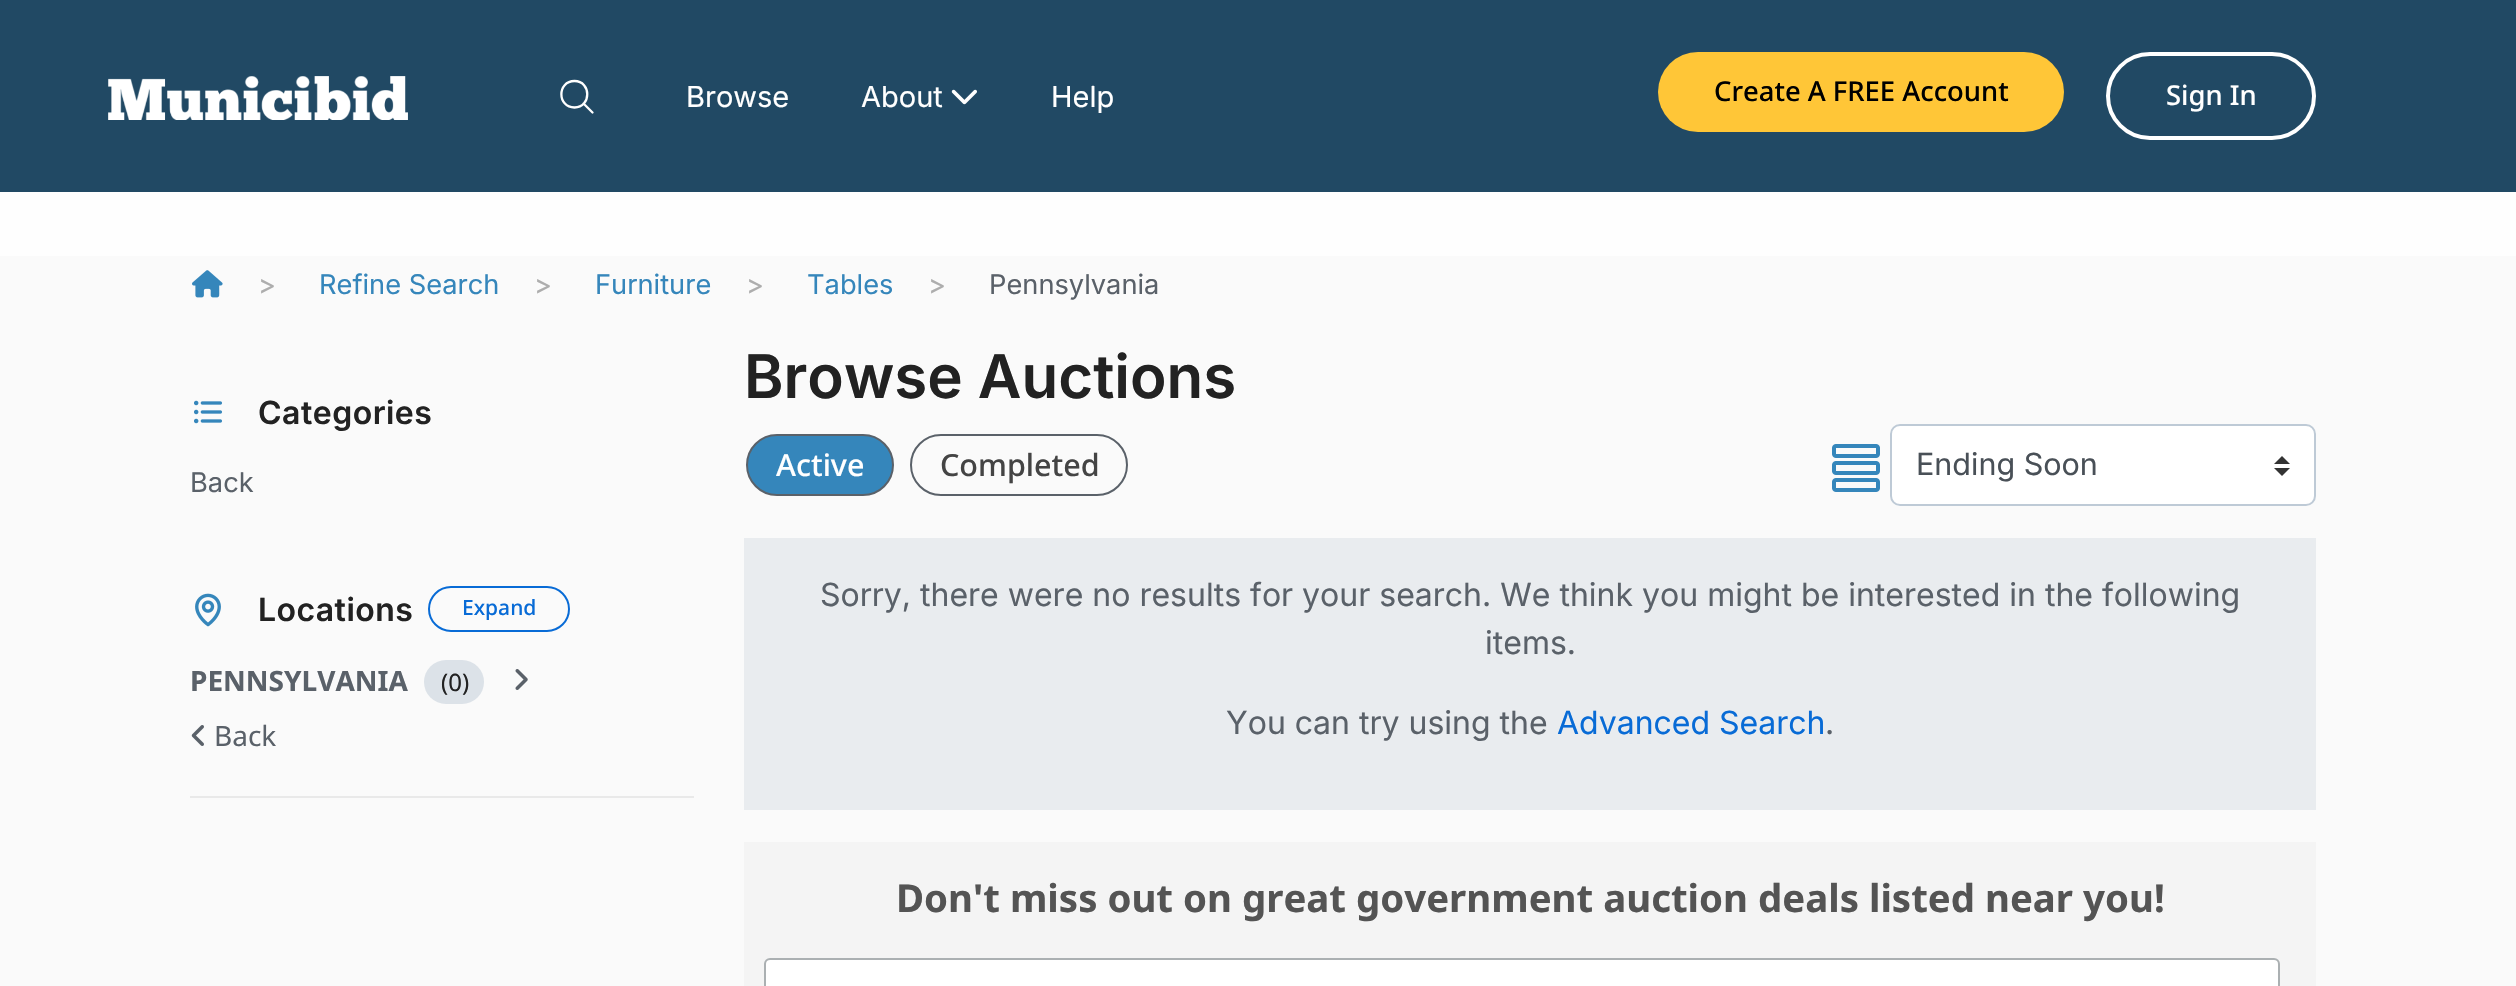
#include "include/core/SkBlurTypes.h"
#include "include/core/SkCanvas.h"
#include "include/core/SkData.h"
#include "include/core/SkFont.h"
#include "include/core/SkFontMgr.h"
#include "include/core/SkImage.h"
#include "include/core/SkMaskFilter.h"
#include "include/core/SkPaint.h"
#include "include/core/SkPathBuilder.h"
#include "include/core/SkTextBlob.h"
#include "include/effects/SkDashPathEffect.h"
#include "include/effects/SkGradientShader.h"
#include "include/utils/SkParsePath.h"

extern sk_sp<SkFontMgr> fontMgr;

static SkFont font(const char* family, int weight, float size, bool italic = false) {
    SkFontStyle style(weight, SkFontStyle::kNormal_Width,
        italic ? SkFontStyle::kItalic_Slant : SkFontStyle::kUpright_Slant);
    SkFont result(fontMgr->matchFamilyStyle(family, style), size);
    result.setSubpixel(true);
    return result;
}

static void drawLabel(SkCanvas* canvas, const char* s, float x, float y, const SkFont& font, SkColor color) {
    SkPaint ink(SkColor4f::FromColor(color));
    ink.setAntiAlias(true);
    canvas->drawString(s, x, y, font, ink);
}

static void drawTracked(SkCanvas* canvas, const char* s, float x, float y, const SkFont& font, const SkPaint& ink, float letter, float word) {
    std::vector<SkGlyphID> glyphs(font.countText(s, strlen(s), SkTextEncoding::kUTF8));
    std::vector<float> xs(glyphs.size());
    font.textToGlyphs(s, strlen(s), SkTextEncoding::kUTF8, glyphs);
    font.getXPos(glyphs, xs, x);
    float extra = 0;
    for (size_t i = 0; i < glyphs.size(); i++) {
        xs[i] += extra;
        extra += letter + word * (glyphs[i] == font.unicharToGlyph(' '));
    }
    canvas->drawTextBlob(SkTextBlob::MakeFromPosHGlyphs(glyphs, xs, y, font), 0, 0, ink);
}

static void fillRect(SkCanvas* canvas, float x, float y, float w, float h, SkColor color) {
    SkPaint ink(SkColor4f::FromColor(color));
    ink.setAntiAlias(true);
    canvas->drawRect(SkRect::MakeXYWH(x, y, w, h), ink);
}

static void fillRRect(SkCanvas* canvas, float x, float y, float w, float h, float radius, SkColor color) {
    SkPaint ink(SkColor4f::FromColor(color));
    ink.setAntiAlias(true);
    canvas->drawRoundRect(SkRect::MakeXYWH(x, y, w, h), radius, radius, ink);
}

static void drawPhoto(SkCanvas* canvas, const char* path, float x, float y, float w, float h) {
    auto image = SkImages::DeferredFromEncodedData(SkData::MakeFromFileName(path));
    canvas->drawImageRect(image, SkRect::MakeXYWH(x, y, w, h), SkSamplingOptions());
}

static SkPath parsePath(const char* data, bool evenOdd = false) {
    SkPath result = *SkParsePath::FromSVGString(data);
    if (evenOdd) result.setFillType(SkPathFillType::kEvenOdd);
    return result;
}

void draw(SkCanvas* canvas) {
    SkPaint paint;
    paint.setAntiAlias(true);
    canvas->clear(0xFFFEFEFE);
    fillRect(canvas, 0, 0, 2516, 192, 0xFF214964);
    drawPhoto(canvas, "assets/img1.png", 108, 76, 300, 44);
    paint.setStroke(true);
    paint.setStrokeWidth(2.3f);
    paint.setStrokeCap(SkPaint::kRound_Cap);
    paint.setStrokeJoin(SkPaint::kRound_Join);
    paint.setColor(0xFFFFFFFF);
    canvas->drawPath(parsePath("M574.5 107.5C591.5 107.5 591.5 81 574.5 81C557 81 557 107.5 574.5 107.5ZM583.5 103.5L592.5 112.5"), paint);
    SkFont font1 = font("Inter", 400, 29);
    drawLabel(canvas, "Browse", 686, 107, font1, 0xFFFFFFFF);
    drawLabel(canvas, "About", 861, 107, font1, 0xFFFFFFFF);
    drawPhoto(canvas, "assets/img2.png", 951, 89, 26, 16);
    drawLabel(canvas, "Help", 1051, 107, font1, 0xFFFFFFFF);
    fillRRect(canvas, 1658, 52, 406, 80, 40, 0xFFFFC637);
    SkFont font2 = font("Noto Sans", 500, 27.4f);
    drawLabel(canvas, "Create A FREE Account", 1714, 101, font2, 0xFF000000);
    paint.setStrokeWidth(4);
    paint.setStrokeCap(SkPaint::kButt_Cap);
    paint.setStrokeJoin(SkPaint::kMiter_Join);
    canvas->drawRoundRect(SkRect::MakeXYWH(2108, 54, 206, 84), 42, 42, paint);
    drawLabel(canvas, "Sign In", 2166, 105, font2, 0xFFFFFFFF);
    fillRect(canvas, 0, 256, 2516, 730, 0xFFFAFAFA);
    drawPhoto(canvas, "assets/img3.png", 192, 270, 31, 28);
    SkFont font3 = font("Inter", 400, 27.25f);
    drawLabel(canvas, ">", 258, 294, font3, 0xFFADADAD);
    drawLabel(canvas, "Refine Search", 319, 294, font3, 0xFF3586BB);
    drawLabel(canvas, ">", 534, 294, font3, 0xFFADADAD);
    drawLabel(canvas, "Furniture", 595, 294, font3, 0xFF3586BB);
    drawLabel(canvas, ">", 746, 294, font3, 0xFFADADAD);
    drawLabel(canvas, "Tables", 807, 294, font3, 0xFF3586BB);
    drawLabel(canvas, ">", 928, 294, font3, 0xFFADADAD);
    drawLabel(canvas, "Pennsylvania", 989, 294, font3, 0xFF5A6169);
    drawPhoto(canvas, "assets/img4.png", 194, 400, 28, 24);
    SkFont font4 = font("Inter", 600, 32);
    paint.setStroke(false);
    paint.setColor(0xFF222222);
    drawTracked(canvas, "Categories", 258, 424, font4, paint, 0.5f, 0);
    drawLabel(canvas, "Back", 190, 492, font3, 0xFF5A6169);
    fillRect(canvas, 190, 796, 504, 2, 0xFFE9E9E9);
    drawPhoto(canvas, "assets/img5.png", 195, 593, 26, 34);
    drawTracked(canvas, "Locations", 258, 621, font4, paint, 0.5f, 0);
    paint.setStroke(true);
    paint.setStrokeWidth(2);
    paint.setColor(0xFF086BD6);
    canvas->drawRoundRect(SkRect::MakeXYWH(429, 587, 140, 44), 22, 22, paint);
    SkFont font5 = font("Noto Sans", 500, 21);
    drawLabel(canvas, "Expand", 462, 615, font5, 0xFF086BD6);
    SkFont font6 = font("Noto Sans", 700, 28);
    drawLabel(canvas, "PENNSYLVANIA", 190, 691, font6, 0xFF5A6169);
    fillRRect(canvas, 424, 660, 60, 44, 22, 0xFFDCE2E8);
    SkFont font7 = font("Noto Sans", 400, 24);
    drawLabel(canvas, "(0)", 441, 691, font7, 0xFF222222);
    drawPhoto(canvas, "assets/img6.png", 515, 669, 13, 21);
    drawPhoto(canvas, "assets/img7.png", 191, 725, 13, 21);
    SkFont font8 = font("Noto Sans", 400, 28);
    drawLabel(canvas, "Back", 214, 746, font8, 0xFF5A6169);
    SkFont font9 = font("Inter", 600, 60);
    drawLabel(canvas, "Browse Auctions", 744, 398, font9, 0xFF222222);
    paint.setStroke(false);
    paint.setColor(0xFF3586BB);
    canvas->drawRoundRect(SkRect::MakeXYWH(747, 435, 146, 60), 30, 30, paint);
    paint.setStroke(true);
    paint.setColor(0xFF5A6169);
    canvas->drawRoundRect(SkRect::MakeXYWH(747, 435, 146, 60), 30, 30, paint);
    SkFont font10 = font("Noto Sans", 500, 30.5f);
    drawLabel(canvas, "Active", 776, 476, font10, 0xFFFFFFFF);
    canvas->drawRoundRect(SkRect::MakeXYWH(911, 435, 216, 60), 30, 30, paint);
    drawLabel(canvas, "Completed", 940, 476, font10, 0xFF444444);
    drawPhoto(canvas, "assets/img8.png", 1832, 444, 48, 48);
    fillRRect(canvas, 1890, 424, 426, 82, 10, 0xFFFFFFFF);
    paint.setStroke(false);
    paint.setColor(0xFF333333);
    canvas->drawPath(parsePath("M2282 456L2274 464H2290ZM2282 476L2274 468H2290Z"), paint);
    paint.setStroke(true);
    paint.setColor(0xFFBECAD6);
    canvas->drawRoundRect(SkRect::MakeXYWH(1891, 425, 424, 80), 9, 9, paint);
    SkFont font11 = font("Inter", 400, 30.5f);
    drawLabel(canvas, "Ending Soon", 1916, 475, font11, 0xFF495057);
    fillRect(canvas, 744, 538, 1572, 272, 0xFFE9ECEF);
    SkFont font12 = font("Inter", 400, 32);
    drawLabel(canvas, "Sorry, there were no results for your search. We think you might be interested in the following", 820, 606, font12, 0xFF5A6169);
    drawLabel(canvas, "items.", 1485, 654, font12, 0xFF5A6169);
    drawLabel(canvas, "You can try using the", 1226, 734, font12, 0xFF5A6169);
    drawLabel(canvas, "Advanced Search", 1557, 734, font12, 0xFF086BD6);
    drawLabel(canvas, ".", 1825, 734, font12, 0xFF5A6169);
    fillRect(canvas, 744, 842, 1572, 144, 0xFFF4F4F4);
    SkFont font13 = font("Noto Sans", 700, 38.4f);
    drawLabel(canvas, "Don't miss out on great government auction deals listed near you!", 896, 912, font13, 0xFF545454);
    fillRRect(canvas, 766, 960, 1512, 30, 4, 0xFFFFFFFF);
    paint.setColor(0xFFABB0B2);
    canvas->drawRoundRect(SkRect::MakeXYWH(765, 959, 1514, 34), 5, 5, paint);
}
